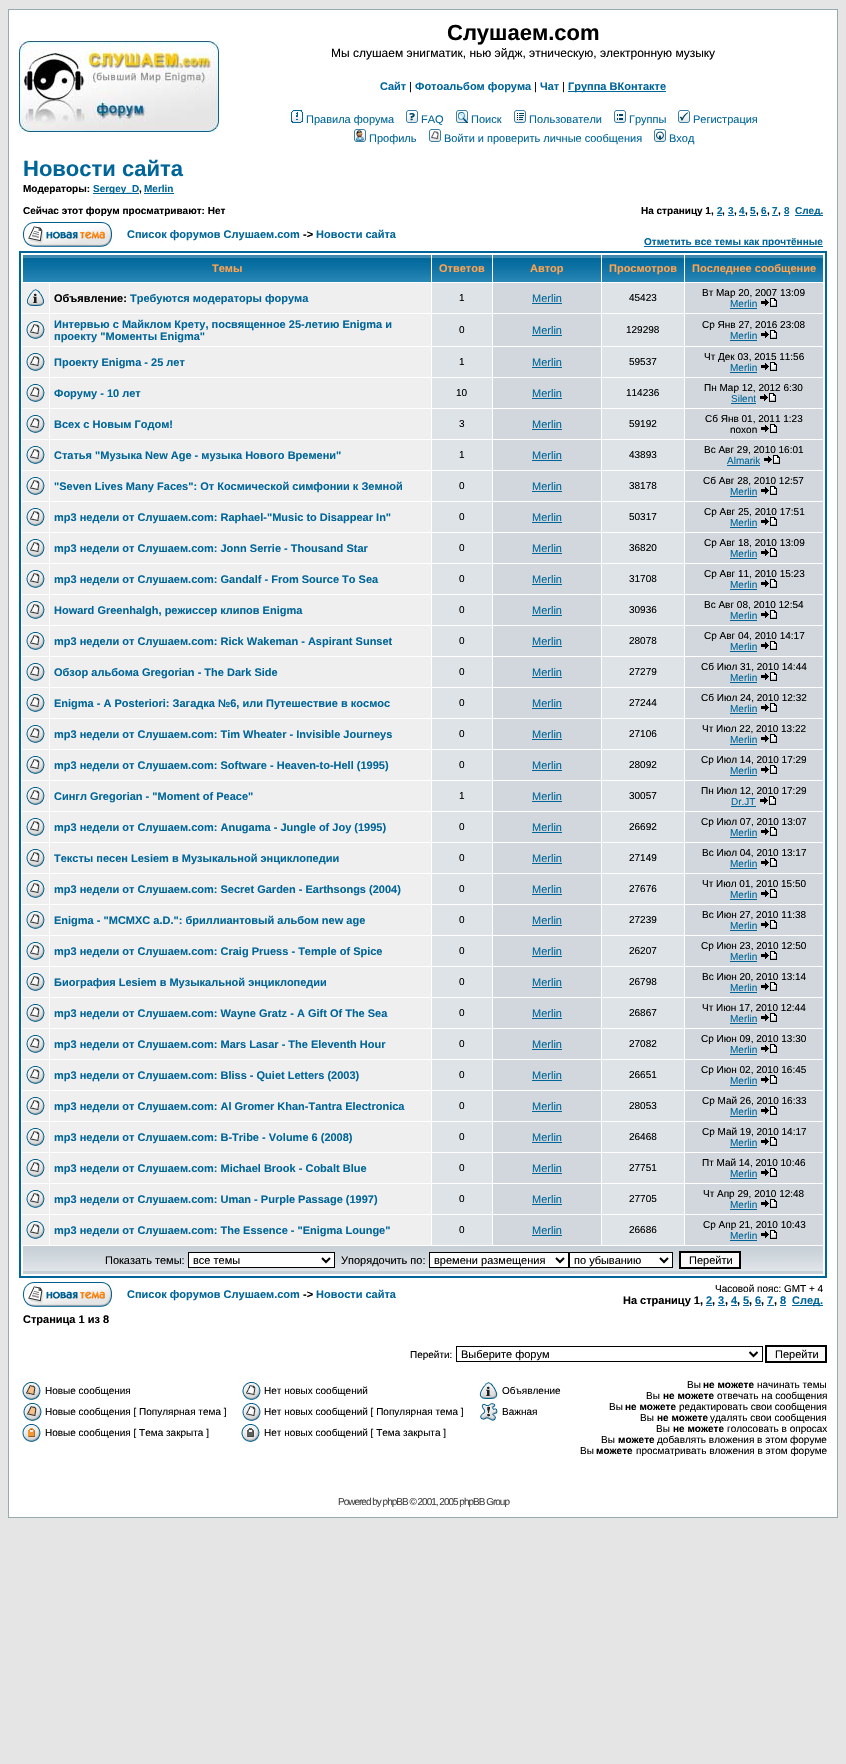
#include "include/core/SkBlurTypes.h"
#include "include/core/SkCanvas.h"
#include "include/core/SkData.h"
#include "include/core/SkFont.h"
#include "include/core/SkFontMgr.h"
#include "include/core/SkImage.h"
#include "include/core/SkMaskFilter.h"
#include "include/core/SkPaint.h"
#include "include/core/SkPathBuilder.h"
#include "include/core/SkTextBlob.h"
#include "include/effects/SkDashPathEffect.h"
#include "include/effects/SkGradientShader.h"
#include "include/utils/SkParsePath.h"

extern sk_sp<SkFontMgr> fontMgr;

static SkFont font(const char* family, int weight, float size, bool italic = false) {
    SkFontStyle style(weight, SkFontStyle::kNormal_Width,
        italic ? SkFontStyle::kItalic_Slant : SkFontStyle::kUpright_Slant);
    SkFont result(fontMgr->matchFamilyStyle(family, style), size);
    result.setSubpixel(true);
    return result;
}

static void drawLabel(SkCanvas* canvas, const char* s, float x, float y, const SkFont& font, SkColor color) {
    SkPaint ink(SkColor4f::FromColor(color));
    ink.setAntiAlias(true);
    canvas->drawString(s, x, y, font, ink);
}

static void drawTracked(SkCanvas* canvas, const char* s, float x, float y, const SkFont& font, const SkPaint& ink, float letter, float word) {
    std::vector<SkGlyphID> glyphs(font.countText(s, strlen(s), SkTextEncoding::kUTF8));
    std::vector<float> xs(glyphs.size());
    font.textToGlyphs(s, strlen(s), SkTextEncoding::kUTF8, glyphs);
    font.getXPos(glyphs, xs, x);
    float extra = 0;
    for (size_t i = 0; i < glyphs.size(); i++) {
        xs[i] += extra;
        extra += letter + word * (glyphs[i] == font.unicharToGlyph(' '));
    }
    canvas->drawTextBlob(SkTextBlob::MakeFromPosHGlyphs(glyphs, xs, y, font), 0, 0, ink);
}

static void fillRect(SkCanvas* canvas, float x, float y, float w, float h, SkColor color) {
    SkPaint ink(SkColor4f::FromColor(color));
    ink.setAntiAlias(true);
    canvas->drawRect(SkRect::MakeXYWH(x, y, w, h), ink);
}

static void drawPhoto(SkCanvas* canvas, const char* path, float x, float y, float w, float h) {
    auto image = SkImages::DeferredFromEncodedData(SkData::MakeFromFileName(path));
    canvas->drawImageRect(image, SkRect::MakeXYWH(x, y, w, h), SkSamplingOptions());
}

static SkPath parsePath(const char* data, bool evenOdd = false) {
    SkPath result = *SkParsePath::FromSVGString(data);
    if (evenOdd) result.setFillType(SkPathFillType::kEvenOdd);
    return result;
}

void draw(SkCanvas* canvas) {
    SkPaint paint;
    paint.setAntiAlias(true);
    canvas->clear(0xFFE5E5E5);
    paint.setColor(0xFFFFFFFF);
    canvas->drawRect(SkRect::MakeXYWH(8.5f, 9.5f, 829, 1508), paint);
    paint.setStroke(true);
    paint.setStrokeWidth(1);
    paint.setColor(0xFF98AAB1);
    canvas->drawRect(SkRect::MakeXYWH(8.5f, 9.5f, 829, 1508), paint);
    drawPhoto(canvas, "assets/img1.png", 19, 41, 200, 91);
    SkFont font1 = font("Liberation Sans", 700, 22);
    drawLabel(canvas, "Слушаем.com", 447, 40, font1, 0xFF000000);
    SkFont font2 = font("Liberation Sans", 400, 12);
    drawLabel(canvas, "Мы слушаем энигматик, нью эйдж, этническую, электронную музыку", 331, 57, font2, 0xFF000000);
    SkFont font3 = font("Liberation Sans", 700, 11);
    drawLabel(canvas, "Сайт", 380, 90, font3, 0xFF006699);
    SkFont font4 = font("Liberation Sans", 400, 11);
    drawLabel(canvas, "|", 409, 90, font4, 0xFF000000);
    drawLabel(canvas, "Фотоальбом форума", 415, 90, font3, 0xFF006699);
    drawLabel(canvas, "|", 534, 90, font4, 0xFF000000);
    drawLabel(canvas, "Чат", 540, 90, font3, 0xFF006699);
    drawLabel(canvas, "|", 562, 90, font4, 0xFF000000);
    fillRect(canvas, 568, 91, 98, 1, 0xFF006699);
    drawLabel(canvas, "Группа ВКонтакте", 568, 90, font3, 0xFF006699);
    drawPhoto(canvas, "assets/img2.png", 291, 110, 12, 13);
    drawLabel(canvas, "Правила форума", 306, 123, font4, 0xFF006699);
    drawPhoto(canvas, "assets/img3.png", 406, 110, 12, 13);
    drawLabel(canvas, "FAQ", 421, 123, font4, 0xFF006699);
    drawPhoto(canvas, "assets/img4.png", 456, 110, 12, 13);
    drawLabel(canvas, "Поиск", 471, 123, font4, 0xFF006699);
    drawPhoto(canvas, "assets/img5.png", 514, 110, 12, 13);
    drawLabel(canvas, "Пользователи", 529, 123, font4, 0xFF006699);
    drawPhoto(canvas, "assets/img6.png", 614, 110, 12, 13);
    drawLabel(canvas, "Группы", 629, 123, font4, 0xFF006699);
    drawPhoto(canvas, "assets/img7.png", 678, 110, 12, 13);
    drawLabel(canvas, "Регистрация", 693, 123, font4, 0xFF006699);
    drawPhoto(canvas, "assets/img8.png", 354, 129, 12, 13);
    drawLabel(canvas, "Профиль", 369, 142, font4, 0xFF006699);
    drawPhoto(canvas, "assets/img9.png", 429, 129, 12, 13);
    drawLabel(canvas, "Войти и проверить личные сообщения", 444, 142, font4, 0xFF006699);
    drawPhoto(canvas, "assets/img10.png", 654, 129, 12, 13);
    drawLabel(canvas, "Вход", 669, 142, font4, 0xFF006699);
    drawLabel(canvas, "Новости сайта", 23, 176, font1, 0xFF006699);
    SkFont font5 = font("Liberation Sans", 700, 10);
    drawLabel(canvas, "Модераторы:", 23, 192, font5, 0xFF000000);
    fillRect(canvas, 93, 193, 46, 1, 0xFF006699);
    drawLabel(canvas, "Sergey_D", 93, 192, font5, 0xFF006699);
    drawLabel(canvas, ",", 139, 192, font5, 0xFF000000);
    fillRect(canvas, 144, 193, 30, 1, 0xFF006699);
    drawLabel(canvas, "Merlin", 144, 192, font5, 0xFF006699);
    drawLabel(canvas, "Сейчас этот форум просматривают: Нет", 23, 214, font5, 0xFF000000);
    drawLabel(canvas, "На страницу 1,", 641, 214, font5, 0xFF000000);
    drawLabel(canvas, "2", 717, 214, font5, 0xFF006699);
    drawLabel(canvas, ",", 722, 214, font5, 0xFF000000);
    fillRect(canvas, 717, 215, 5, 1, 0xFF006699);
    drawLabel(canvas, "3", 728, 214, font5, 0xFF006699);
    drawLabel(canvas, ",", 734, 214, font5, 0xFF000000);
    fillRect(canvas, 728, 215, 6, 1, 0xFF006699);
    drawLabel(canvas, "4", 739, 214, font5, 0xFF006699);
    drawLabel(canvas, ",", 745, 214, font5, 0xFF000000);
    fillRect(canvas, 739, 215, 6, 1, 0xFF006699);
    drawLabel(canvas, "5", 750, 214, font5, 0xFF006699);
    drawLabel(canvas, ",", 756, 214, font5, 0xFF000000);
    fillRect(canvas, 750, 215, 6, 1, 0xFF006699);
    drawLabel(canvas, "6", 761, 214, font5, 0xFF006699);
    drawLabel(canvas, ",", 767, 214, font5, 0xFF000000);
    fillRect(canvas, 761, 215, 6, 1, 0xFF006699);
    drawLabel(canvas, "7", 772, 214, font5, 0xFF006699);
    drawLabel(canvas, ",", 778, 214, font5, 0xFF000000);
    fillRect(canvas, 772, 215, 6, 1, 0xFF006699);
    fillRect(canvas, 784, 215, 5, 1, 0xFF006699);
    drawLabel(canvas, "8", 784, 214, font5, 0xFF006699);
    fillRect(canvas, 795, 215, 28, 1, 0xFF006699);
    drawLabel(canvas, "След.", 795, 214, font5, 0xFF006699);
    drawPhoto(canvas, "assets/img11.png", 23, 222, 89, 25);
    drawLabel(canvas, "Список форумов Слушаем.com", 127, 238, font3, 0xFF006699);
    drawLabel(canvas, "->", 303, 238, font3, 0xFF000000);
    drawLabel(canvas, "Новости сайта", 316, 238, font3, 0xFF006699);
    fillRect(canvas, 644, 246, 179, 1, 0xFF006699);
    drawLabel(canvas, "Отметить все темы как прочтённые", 644, 245, font5, 0xFF006699);
    paint.setStrokeWidth(2);
    paint.setColor(0xFF006699);
    canvas->drawRect(SkRect::MakeXYWH(20, 252, 806, 1025), paint);
    drawPhoto(canvas, "assets/img12.png", 23, 255, 408, 27);
    drawLabel(canvas, "Темы", 212, 272, font3, 0xFFFFA34F);
    drawPhoto(canvas, "assets/img13.png", 432, 255, 60, 27);
    drawLabel(canvas, "Ответов", 439, 272, font3, 0xFFFFA34F);
    drawPhoto(canvas, "assets/img14.png", 493, 255, 108, 27);
    drawLabel(canvas, "Автор", 530, 272, font3, 0xFFFFA34F);
    drawPhoto(canvas, "assets/img15.png", 602, 255, 82, 27);
    drawLabel(canvas, "Просмотров", 609, 272, font3, 0xFFFFA34F);
    drawPhoto(canvas, "assets/img16.png", 685, 255, 138, 27);
    drawLabel(canvas, "Последнее сообщение", 692, 272, font3, 0xFFFFA34F);
    fillRect(canvas, 22, 283, 27, 30, 0xFFEFEFEF);
    drawPhoto(canvas, "assets/img17.png", 26, 289, 19, 17);
    fillRect(canvas, 50, 283, 381, 30, 0xFFEFEFEF);
    drawLabel(canvas, "Объявление:", 54, 302, font3, 0xFF000000);
    drawLabel(canvas, "Требуются модераторы форума", 130, 302, font3, 0xFF006699);
    fillRect(canvas, 432, 283, 60, 30, 0xFFDEE3E7);
    SkFont font6 = font("Liberation Sans", 400, 10);
    drawLabel(canvas, "1", 459, 301, font6, 0xFF000000);
    fillRect(canvas, 493, 283, 108, 30, 0xFFD1D7DC);
    drawLabel(canvas, "Merlin", 532, 302, font4, 0xFF006699);
    fillRect(canvas, 532, 303, 30, 1, 0xFF006699);
    fillRect(canvas, 602, 283, 82, 30, 0xFFDEE3E7);
    drawLabel(canvas, "45423", 629, 301, font6, 0xFF000000);
    fillRect(canvas, 685, 283, 138, 30, 0xFFD1D7DC);
    drawLabel(canvas, "Вт Мар 20, 2007 13:09", 702, 296, font6, 0xFF000000);
    drawLabel(canvas, "Merlin", 730, 307, font6, 0xFF006699);
    fillRect(canvas, 730, 308, 27, 1, 0xFF006699);
    drawPhoto(canvas, "assets/img18.png", 761, 298, 16, 9);
    fillRect(canvas, 22, 314, 27, 32, 0xFFEFEFEF);
    drawPhoto(canvas, "assets/img19.png", 26, 321, 19, 18);
    fillRect(canvas, 50, 314, 381, 32, 0xFFEFEFEF);
    drawLabel(canvas, "Интервью с Майклом Крету, посвященное 25-летию Enigma и", 54, 328, font3, 0xFF006699);
    drawLabel(canvas, "проекту \"Моменты Enigma\"", 54, 340, font3, 0xFF006699);
    fillRect(canvas, 432, 314, 60, 32, 0xFFDEE3E7);
    drawLabel(canvas, "0", 459, 333, font6, 0xFF000000);
    fillRect(canvas, 493, 314, 108, 32, 0xFFD1D7DC);
    drawLabel(canvas, "Merlin", 532, 334, font4, 0xFF006699);
    fillRect(canvas, 532, 335, 30, 1, 0xFF006699);
    fillRect(canvas, 602, 314, 82, 32, 0xFFDEE3E7);
    drawLabel(canvas, "129298", 626, 333, font6, 0xFF000000);
    fillRect(canvas, 685, 314, 138, 32, 0xFFD1D7DC);
    drawLabel(canvas, "Ср Янв 27, 2016 23:08", 702, 328, font6, 0xFF000000);
    drawLabel(canvas, "Merlin", 730, 339, font6, 0xFF006699);
    fillRect(canvas, 730, 340, 27, 1, 0xFF006699);
    drawPhoto(canvas, "assets/img18.png", 761, 330, 16, 9);
    fillRect(canvas, 22, 347, 27, 30, 0xFFEFEFEF);
    drawPhoto(canvas, "assets/img19.png", 26, 353, 19, 18);
    fillRect(canvas, 50, 347, 381, 30, 0xFFEFEFEF);
    drawLabel(canvas, "Проекту Enigma - 25 лет", 54, 366, font3, 0xFF006699);
    fillRect(canvas, 432, 347, 60, 30, 0xFFDEE3E7);
    drawLabel(canvas, "1", 459, 365, font6, 0xFF000000);
    fillRect(canvas, 493, 347, 108, 30, 0xFFD1D7DC);
    drawLabel(canvas, "Merlin", 532, 366, font4, 0xFF006699);
    fillRect(canvas, 532, 367, 30, 1, 0xFF006699);
    fillRect(canvas, 602, 347, 82, 30, 0xFFDEE3E7);
    drawLabel(canvas, "59537", 629, 365, font6, 0xFF000000);
    fillRect(canvas, 685, 347, 138, 30, 0xFFD1D7DC);
    drawLabel(canvas, "Чт Дек 03, 2015 11:56", 704, 360, font6, 0xFF000000);
    drawLabel(canvas, "Merlin", 730, 371, font6, 0xFF006699);
    fillRect(canvas, 730, 372, 27, 1, 0xFF006699);
    drawPhoto(canvas, "assets/img18.png", 761, 362, 16, 9);
    fillRect(canvas, 22, 378, 27, 30, 0xFFEFEFEF);
    drawPhoto(canvas, "assets/img19.png", 26, 384, 19, 18);
    fillRect(canvas, 50, 378, 381, 30, 0xFFEFEFEF);
    drawLabel(canvas, "Форуму - 10 лет", 54, 397, font3, 0xFF006699);
    fillRect(canvas, 432, 378, 60, 30, 0xFFDEE3E7);
    drawLabel(canvas, "10", 456, 396, font6, 0xFF000000);
    fillRect(canvas, 493, 378, 108, 30, 0xFFD1D7DC);
    drawLabel(canvas, "Merlin", 532, 397, font4, 0xFF006699);
    fillRect(canvas, 532, 398, 30, 1, 0xFF006699);
    fillRect(canvas, 602, 378, 82, 30, 0xFFDEE3E7);
    drawLabel(canvas, "114236", 626, 396, font6, 0xFF000000);
    fillRect(canvas, 685, 378, 138, 30, 0xFFD1D7DC);
    drawLabel(canvas, "Пн Мар 12, 2012 6:30", 704, 391, font6, 0xFF000000);
    drawLabel(canvas, "Silent", 731, 402, font6, 0xFF006699);
    fillRect(canvas, 731, 403, 25, 1, 0xFF006699);
    drawPhoto(canvas, "assets/img18.png", 760, 393, 16, 9);
    fillRect(canvas, 22, 409, 27, 30, 0xFFEFEFEF);
    drawPhoto(canvas, "assets/img19.png", 26, 415, 19, 18);
    fillRect(canvas, 50, 409, 381, 30, 0xFFEFEFEF);
    drawLabel(canvas, "Всех с Новым Годом!", 54, 428, font3, 0xFF006699);
    fillRect(canvas, 432, 409, 60, 30, 0xFFDEE3E7);
    drawLabel(canvas, "3", 459, 427, font6, 0xFF000000);
    fillRect(canvas, 493, 409, 108, 30, 0xFFD1D7DC);
    drawLabel(canvas, "Merlin", 532, 428, font4, 0xFF006699);
    fillRect(canvas, 532, 429, 30, 1, 0xFF006699);
    fillRect(canvas, 602, 409, 82, 30, 0xFFDEE3E7);
    drawLabel(canvas, "59192", 629, 427, font6, 0xFF000000);
    fillRect(canvas, 685, 409, 138, 30, 0xFFD1D7DC);
    drawLabel(canvas, "Сб Янв 01, 2011 1:23", 705, 422, font6, 0xFF000000);
    drawLabel(canvas, "noxon", 730, 433, font6, 0xFF000000);
    drawPhoto(canvas, "assets/img18.png", 761, 424, 16, 9);
    fillRect(canvas, 22, 440, 27, 30, 0xFFEFEFEF);
    drawPhoto(canvas, "assets/img19.png", 26, 446, 19, 18);
    fillRect(canvas, 50, 440, 381, 30, 0xFFEFEFEF);
    drawLabel(canvas, "Статья \"Музыка New Age - музыка Нового Времени\"", 54, 459, font3, 0xFF006699);
    fillRect(canvas, 432, 440, 60, 30, 0xFFDEE3E7);
    drawLabel(canvas, "1", 459, 458, font6, 0xFF000000);
    fillRect(canvas, 493, 440, 108, 30, 0xFFD1D7DC);
    drawLabel(canvas, "Merlin", 532, 459, font4, 0xFF006699);
    fillRect(canvas, 532, 460, 30, 1, 0xFF006699);
    fillRect(canvas, 602, 440, 82, 30, 0xFFDEE3E7);
    drawLabel(canvas, "43893", 629, 458, font6, 0xFF000000);
    fillRect(canvas, 685, 440, 138, 30, 0xFFD1D7DC);
    drawLabel(canvas, "Вс Авг 29, 2010 16:01", 704, 453, font6, 0xFF000000);
    drawLabel(canvas, "Almarik", 727, 464, font6, 0xFF006699);
    fillRect(canvas, 727, 465, 33, 1, 0xFF006699);
    drawPhoto(canvas, "assets/img18.png", 764, 455, 16, 9);
    fillRect(canvas, 22, 471, 27, 30, 0xFFEFEFEF);
    drawPhoto(canvas, "assets/img19.png", 26, 477, 19, 18);
    fillRect(canvas, 50, 471, 381, 30, 0xFFEFEFEF);
    drawLabel(canvas, "\"Seven Lives Many Faces\": От Космической симфонии к Земной", 54, 490, font3, 0xFF006699);
    fillRect(canvas, 432, 471, 60, 30, 0xFFDEE3E7);
    drawLabel(canvas, "0", 459, 489, font6, 0xFF000000);
    fillRect(canvas, 493, 471, 108, 30, 0xFFD1D7DC);
    drawLabel(canvas, "Merlin", 532, 490, font4, 0xFF006699);
    fillRect(canvas, 532, 491, 30, 1, 0xFF006699);
    fillRect(canvas, 602, 471, 82, 30, 0xFFDEE3E7);
    drawLabel(canvas, "38178", 629, 489, font6, 0xFF000000);
    fillRect(canvas, 685, 471, 138, 30, 0xFFD1D7DC);
    drawLabel(canvas, "Сб Авг 28, 2010 12:57", 703, 484, font6, 0xFF000000);
    drawLabel(canvas, "Merlin", 730, 495, font6, 0xFF006699);
    fillRect(canvas, 730, 496, 27, 1, 0xFF006699);
    drawPhoto(canvas, "assets/img18.png", 761, 486, 16, 9);
    fillRect(canvas, 22, 502, 27, 30, 0xFFEFEFEF);
    drawPhoto(canvas, "assets/img19.png", 26, 508, 19, 18);
    fillRect(canvas, 50, 502, 381, 30, 0xFFEFEFEF);
    drawLabel(canvas, "mp3 недели от Слушаем.com: Raphael-\"Music to Disappear In\"", 54, 521, font3, 0xFF006699);
    fillRect(canvas, 432, 502, 60, 30, 0xFFDEE3E7);
    drawLabel(canvas, "0", 459, 520, font6, 0xFF000000);
    fillRect(canvas, 493, 502, 108, 30, 0xFFD1D7DC);
    drawLabel(canvas, "Merlin", 532, 521, font4, 0xFF006699);
    fillRect(canvas, 532, 522, 30, 1, 0xFF006699);
    fillRect(canvas, 602, 502, 82, 30, 0xFFDEE3E7);
    drawLabel(canvas, "50317", 629, 520, font6, 0xFF000000);
    fillRect(canvas, 685, 502, 138, 30, 0xFFD1D7DC);
    drawLabel(canvas, "Ср Авг 25, 2010 17:51", 704, 515, font6, 0xFF000000);
    drawLabel(canvas, "Merlin", 730, 526, font6, 0xFF006699);
    fillRect(canvas, 730, 527, 27, 1, 0xFF006699);
    drawPhoto(canvas, "assets/img18.png", 761, 517, 16, 9);
    fillRect(canvas, 22, 533, 27, 30, 0xFFEFEFEF);
    drawPhoto(canvas, "assets/img19.png", 26, 539, 19, 18);
    fillRect(canvas, 50, 533, 381, 30, 0xFFEFEFEF);
    drawLabel(canvas, "mp3 недели от Слушаем.com: Jonn Serrie - Thousand Star", 54, 552, font3, 0xFF006699);
    fillRect(canvas, 432, 533, 60, 30, 0xFFDEE3E7);
    drawLabel(canvas, "0", 459, 551, font6, 0xFF000000);
    fillRect(canvas, 493, 533, 108, 30, 0xFFD1D7DC);
    drawLabel(canvas, "Merlin", 532, 552, font4, 0xFF006699);
    fillRect(canvas, 532, 553, 30, 1, 0xFF006699);
    fillRect(canvas, 602, 533, 82, 30, 0xFFDEE3E7);
    drawLabel(canvas, "36820", 629, 551, font6, 0xFF000000);
    fillRect(canvas, 685, 533, 138, 30, 0xFFD1D7DC);
    drawLabel(canvas, "Ср Авг 18, 2010 13:09", 704, 546, font6, 0xFF000000);
    drawLabel(canvas, "Merlin", 730, 557, font6, 0xFF006699);
    fillRect(canvas, 730, 558, 27, 1, 0xFF006699);
    drawPhoto(canvas, "assets/img18.png", 761, 548, 16, 9);
    fillRect(canvas, 22, 564, 27, 30, 0xFFEFEFEF);
    drawPhoto(canvas, "assets/img19.png", 26, 570, 19, 18);
    fillRect(canvas, 50, 564, 381, 30, 0xFFEFEFEF);
    drawLabel(canvas, "mp3 недели от Слушаем.com: Gandalf - From Source To Sea", 54, 583, font3, 0xFF006699);
    fillRect(canvas, 432, 564, 60, 30, 0xFFDEE3E7);
    drawLabel(canvas, "0", 459, 582, font6, 0xFF000000);
    fillRect(canvas, 493, 564, 108, 30, 0xFFD1D7DC);
    drawLabel(canvas, "Merlin", 532, 583, font4, 0xFF006699);
    fillRect(canvas, 532, 584, 30, 1, 0xFF006699);
    fillRect(canvas, 602, 564, 82, 30, 0xFFDEE3E7);
    drawLabel(canvas, "31708", 629, 582, font6, 0xFF000000);
    fillRect(canvas, 685, 564, 138, 30, 0xFFD1D7DC);
    drawLabel(canvas, "Ср Авг 11, 2010 15:23", 704, 577, font6, 0xFF000000);
    drawLabel(canvas, "Merlin", 730, 588, font6, 0xFF006699);
    fillRect(canvas, 730, 589, 27, 1, 0xFF006699);
    drawPhoto(canvas, "assets/img18.png", 761, 579, 16, 9);
    fillRect(canvas, 22, 595, 27, 30, 0xFFEFEFEF);
    drawPhoto(canvas, "assets/img19.png", 26, 601, 19, 18);
    fillRect(canvas, 50, 595, 381, 30, 0xFFEFEFEF);
    drawLabel(canvas, "Howard Greenhalgh, режиссер клипов Enigma", 54, 614, font3, 0xFF006699);
    fillRect(canvas, 432, 595, 60, 30, 0xFFDEE3E7);
    drawLabel(canvas, "0", 459, 613, font6, 0xFF000000);
    fillRect(canvas, 493, 595, 108, 30, 0xFFD1D7DC);
    drawLabel(canvas, "Merlin", 532, 614, font4, 0xFF006699);
    fillRect(canvas, 532, 615, 30, 1, 0xFF006699);
    fillRect(canvas, 602, 595, 82, 30, 0xFFDEE3E7);
    drawLabel(canvas, "30936", 629, 613, font6, 0xFF000000);
    fillRect(canvas, 685, 595, 138, 30, 0xFFD1D7DC);
    drawLabel(canvas, "Вс Авг 08, 2010 12:54", 704, 608, font6, 0xFF000000);
    drawLabel(canvas, "Merlin", 730, 619, font6, 0xFF006699);
    fillRect(canvas, 730, 620, 27, 1, 0xFF006699);
    drawPhoto(canvas, "assets/img18.png", 761, 610, 16, 9);
    fillRect(canvas, 22, 626, 27, 30, 0xFFEFEFEF);
    drawPhoto(canvas, "assets/img19.png", 26, 632, 19, 18);
    fillRect(canvas, 50, 626, 381, 30, 0xFFEFEFEF);
    drawLabel(canvas, "mp3 недели от Слушаем.com: Rick Wakeman - Aspirant Sunset", 54, 645, font3, 0xFF006699);
    fillRect(canvas, 432, 626, 60, 30, 0xFFDEE3E7);
    drawLabel(canvas, "0", 459, 644, font6, 0xFF000000);
    fillRect(canvas, 493, 626, 108, 30, 0xFFD1D7DC);
    drawLabel(canvas, "Merlin", 532, 645, font4, 0xFF006699);
    fillRect(canvas, 532, 646, 30, 1, 0xFF006699);
    fillRect(canvas, 602, 626, 82, 30, 0xFFDEE3E7);
    drawLabel(canvas, "28078", 629, 644, font6, 0xFF000000);
    fillRect(canvas, 685, 626, 138, 30, 0xFFD1D7DC);
    drawLabel(canvas, "Ср Авг 04, 2010 14:17", 704, 639, font6, 0xFF000000);
    drawLabel(canvas, "Merlin", 730, 650, font6, 0xFF006699);
    fillRect(canvas, 730, 651, 27, 1, 0xFF006699);
    drawPhoto(canvas, "assets/img18.png", 761, 641, 16, 9);
    fillRect(canvas, 22, 657, 27, 30, 0xFFEFEFEF);
    drawPhoto(canvas, "assets/img19.png", 26, 663, 19, 18);
    fillRect(canvas, 50, 657, 381, 30, 0xFFEFEFEF);
    drawLabel(canvas, "Обзор альбома Gregorian - The Dark Side", 54, 676, font3, 0xFF006699);
    fillRect(canvas, 432, 657, 60, 30, 0xFFDEE3E7);
    drawLabel(canvas, "0", 459, 675, font6, 0xFF000000);
    fillRect(canvas, 493, 657, 108, 30, 0xFFD1D7DC);
    drawLabel(canvas, "Merlin", 532, 676, font4, 0xFF006699);
    fillRect(canvas, 532, 677, 30, 1, 0xFF006699);
    fillRect(canvas, 602, 657, 82, 30, 0xFFDEE3E7);
    drawLabel(canvas, "27279", 629, 675, font6, 0xFF000000);
    fillRect(canvas, 685, 657, 138, 30, 0xFFD1D7DC);
    drawLabel(canvas, "Сб Июл 31, 2010 14:44", 701, 670, font6, 0xFF000000);
    drawLabel(canvas, "Merlin", 730, 681, font6, 0xFF006699);
    fillRect(canvas, 730, 682, 27, 1, 0xFF006699);
    drawPhoto(canvas, "assets/img18.png", 761, 672, 16, 9);
    fillRect(canvas, 22, 688, 27, 30, 0xFFEFEFEF);
    drawPhoto(canvas, "assets/img19.png", 26, 694, 19, 18);
    fillRect(canvas, 50, 688, 381, 30, 0xFFEFEFEF);
    drawLabel(canvas, "Enigma - A Posteriori: Загадка №6, или Путешествие в космоc", 54, 707, font3, 0xFF006699);
    fillRect(canvas, 432, 688, 60, 30, 0xFFDEE3E7);
    drawLabel(canvas, "0", 459, 706, font6, 0xFF000000);
    fillRect(canvas, 493, 688, 108, 30, 0xFFD1D7DC);
    drawLabel(canvas, "Merlin", 532, 707, font4, 0xFF006699);
    fillRect(canvas, 532, 708, 30, 1, 0xFF006699);
    fillRect(canvas, 602, 688, 82, 30, 0xFFDEE3E7);
    drawLabel(canvas, "27244", 629, 706, font6, 0xFF000000);
    fillRect(canvas, 685, 688, 138, 30, 0xFFD1D7DC);
    drawLabel(canvas, "Сб Июл 24, 2010 12:32", 701, 701, font6, 0xFF000000);
    drawLabel(canvas, "Merlin", 730, 712, font6, 0xFF006699);
    fillRect(canvas, 730, 713, 27, 1, 0xFF006699);
    drawPhoto(canvas, "assets/img18.png", 761, 703, 16, 9);
    fillRect(canvas, 22, 719, 27, 30, 0xFFEFEFEF);
    drawPhoto(canvas, "assets/img19.png", 26, 725, 19, 18);
    fillRect(canvas, 50, 719, 381, 30, 0xFFEFEFEF);
    drawLabel(canvas, "mp3 недели от Слушаем.com: Tim Wheater - Invisible Journeys", 54, 738, font3, 0xFF006699);
    fillRect(canvas, 432, 719, 60, 30, 0xFFDEE3E7);
    drawLabel(canvas, "0", 459, 737, font6, 0xFF000000);
    fillRect(canvas, 493, 719, 108, 30, 0xFFD1D7DC);
    drawLabel(canvas, "Merlin", 532, 738, font4, 0xFF006699);
    fillRect(canvas, 532, 739, 30, 1, 0xFF006699);
    fillRect(canvas, 602, 719, 82, 30, 0xFFDEE3E7);
    drawLabel(canvas, "27106", 629, 737, font6, 0xFF000000);
    fillRect(canvas, 685, 719, 138, 30, 0xFFD1D7DC);
    drawLabel(canvas, "Чт Июл 22, 2010 13:22", 702, 732, font6, 0xFF000000);
    drawLabel(canvas, "Merlin", 730, 743, font6, 0xFF006699);
    fillRect(canvas, 730, 744, 27, 1, 0xFF006699);
    drawPhoto(canvas, "assets/img18.png", 761, 734, 16, 9);
    fillRect(canvas, 22, 750, 27, 30, 0xFFEFEFEF);
    drawPhoto(canvas, "assets/img19.png", 26, 756, 19, 18);
    fillRect(canvas, 50, 750, 381, 30, 0xFFEFEFEF);
    drawLabel(canvas, "mp3 недели от Слушаем.com: Software - Heaven-to-Hell (1995)", 54, 769, font3, 0xFF006699);
    fillRect(canvas, 432, 750, 60, 30, 0xFFDEE3E7);
    drawLabel(canvas, "0", 459, 768, font6, 0xFF000000);
    fillRect(canvas, 493, 750, 108, 30, 0xFFD1D7DC);
    drawLabel(canvas, "Merlin", 532, 769, font4, 0xFF006699);
    fillRect(canvas, 532, 770, 30, 1, 0xFF006699);
    fillRect(canvas, 602, 750, 82, 30, 0xFFDEE3E7);
    drawLabel(canvas, "28092", 629, 768, font6, 0xFF000000);
    fillRect(canvas, 685, 750, 138, 30, 0xFFD1D7DC);
    drawLabel(canvas, "Ср Июл 14, 2010 17:29", 701, 763, font6, 0xFF000000);
    drawLabel(canvas, "Merlin", 730, 774, font6, 0xFF006699);
    fillRect(canvas, 730, 775, 27, 1, 0xFF006699);
    drawPhoto(canvas, "assets/img18.png", 761, 765, 16, 9);
    fillRect(canvas, 22, 781, 27, 30, 0xFFEFEFEF);
    drawPhoto(canvas, "assets/img19.png", 26, 787, 19, 18);
    fillRect(canvas, 50, 781, 381, 30, 0xFFEFEFEF);
    drawLabel(canvas, "Сингл Gregorian - \"Moment of Peace\"", 54, 800, font3, 0xFF006699);
    fillRect(canvas, 432, 781, 60, 30, 0xFFDEE3E7);
    drawLabel(canvas, "1", 459, 799, font6, 0xFF000000);
    fillRect(canvas, 493, 781, 108, 30, 0xFFD1D7DC);
    drawLabel(canvas, "Merlin", 532, 800, font4, 0xFF006699);
    fillRect(canvas, 532, 801, 30, 1, 0xFF006699);
    fillRect(canvas, 602, 781, 82, 30, 0xFFDEE3E7);
    drawLabel(canvas, "30057", 629, 799, font6, 0xFF000000);
    fillRect(canvas, 685, 781, 138, 30, 0xFFD1D7DC);
    drawLabel(canvas, "Пн Июл 12, 2010 17:29", 701, 794, font6, 0xFF000000);
    drawLabel(canvas, "Dr.JT", 731, 805, font6, 0xFF006699);
    fillRect(canvas, 731, 806, 25, 1, 0xFF006699);
    drawPhoto(canvas, "assets/img18.png", 760, 796, 16, 9);
    fillRect(canvas, 22, 812, 27, 30, 0xFFEFEFEF);
    drawPhoto(canvas, "assets/img19.png", 26, 818, 19, 18);
    fillRect(canvas, 50, 812, 381, 30, 0xFFEFEFEF);
    drawLabel(canvas, "mp3 недели от Слушаем.com: Anugama - Jungle of Joy (1995)", 54, 831, font3, 0xFF006699);
    fillRect(canvas, 432, 812, 60, 30, 0xFFDEE3E7);
    drawLabel(canvas, "0", 459, 830, font6, 0xFF000000);
    fillRect(canvas, 493, 812, 108, 30, 0xFFD1D7DC);
    drawLabel(canvas, "Merlin", 532, 831, font4, 0xFF006699);
    fillRect(canvas, 532, 832, 30, 1, 0xFF006699);
    fillRect(canvas, 602, 812, 82, 30, 0xFFDEE3E7);
    drawLabel(canvas, "26692", 629, 830, font6, 0xFF000000);
    fillRect(canvas, 685, 812, 138, 30, 0xFFD1D7DC);
    drawLabel(canvas, "Ср Июл 07, 2010 13:07", 701, 825, font6, 0xFF000000);
    drawLabel(canvas, "Merlin", 730, 836, font6, 0xFF006699);
    fillRect(canvas, 730, 837, 27, 1, 0xFF006699);
    drawPhoto(canvas, "assets/img18.png", 761, 827, 16, 9);
    fillRect(canvas, 22, 843, 27, 30, 0xFFEFEFEF);
    drawPhoto(canvas, "assets/img19.png", 26, 849, 19, 18);
    fillRect(canvas, 50, 843, 381, 30, 0xFFEFEFEF);
    drawLabel(canvas, "Тексты песен Lesiem в Музыкальной энциклопедии", 54, 862, font3, 0xFF006699);
    fillRect(canvas, 432, 843, 60, 30, 0xFFDEE3E7);
    drawLabel(canvas, "0", 459, 861, font6, 0xFF000000);
    fillRect(canvas, 493, 843, 108, 30, 0xFFD1D7DC);
    drawLabel(canvas, "Merlin", 532, 862, font4, 0xFF006699);
    fillRect(canvas, 532, 863, 30, 1, 0xFF006699);
    fillRect(canvas, 602, 843, 82, 30, 0xFFDEE3E7);
    drawLabel(canvas, "27149", 629, 861, font6, 0xFF000000);
    fillRect(canvas, 685, 843, 138, 30, 0xFFD1D7DC);
    drawLabel(canvas, "Вс Июл 04, 2010 13:17", 702, 856, font6, 0xFF000000);
    drawLabel(canvas, "Merlin", 730, 867, font6, 0xFF006699);
    fillRect(canvas, 730, 868, 27, 1, 0xFF006699);
    drawPhoto(canvas, "assets/img18.png", 761, 858, 16, 9);
    fillRect(canvas, 22, 874, 27, 30, 0xFFEFEFEF);
    drawPhoto(canvas, "assets/img19.png", 26, 880, 19, 18);
    fillRect(canvas, 50, 874, 381, 30, 0xFFEFEFEF);
    drawLabel(canvas, "mp3 недели от Слушаем.com: Secret Garden - Earthsongs (2004)", 54, 893, font3, 0xFF006699);
    fillRect(canvas, 432, 874, 60, 30, 0xFFDEE3E7);
    drawLabel(canvas, "0", 459, 892, font6, 0xFF000000);
    fillRect(canvas, 493, 874, 108, 30, 0xFFD1D7DC);
    drawLabel(canvas, "Merlin", 532, 893, font4, 0xFF006699);
    fillRect(canvas, 532, 894, 30, 1, 0xFF006699);
    fillRect(canvas, 602, 874, 82, 30, 0xFFDEE3E7);
    drawLabel(canvas, "27676", 629, 892, font6, 0xFF000000);
    fillRect(canvas, 685, 874, 138, 30, 0xFFD1D7DC);
    drawLabel(canvas, "Чт Июл 01, 2010 15:50", 702, 887, font6, 0xFF000000);
    drawLabel(canvas, "Merlin", 730, 898, font6, 0xFF006699);
    fillRect(canvas, 730, 899, 27, 1, 0xFF006699);
    drawPhoto(canvas, "assets/img18.png", 761, 889, 16, 9);
    fillRect(canvas, 22, 905, 27, 30, 0xFFEFEFEF);
    drawPhoto(canvas, "assets/img19.png", 26, 911, 19, 18);
    fillRect(canvas, 50, 905, 381, 30, 0xFFEFEFEF);
    drawLabel(canvas, "Enigma - \"MCMXC a.D.\": бриллиантовый альбом new age", 54, 924, font3, 0xFF006699);
    fillRect(canvas, 432, 905, 60, 30, 0xFFDEE3E7);
    drawLabel(canvas, "0", 459, 923, font6, 0xFF000000);
    fillRect(canvas, 493, 905, 108, 30, 0xFFD1D7DC);
    drawLabel(canvas, "Merlin", 532, 924, font4, 0xFF006699);
    fillRect(canvas, 532, 925, 30, 1, 0xFF006699);
    fillRect(canvas, 602, 905, 82, 30, 0xFFDEE3E7);
    drawLabel(canvas, "27239", 629, 923, font6, 0xFF000000);
    fillRect(canvas, 685, 905, 138, 30, 0xFFD1D7DC);
    drawLabel(canvas, "Вс Июн 27, 2010 11:38", 702, 918, font6, 0xFF000000);
    drawLabel(canvas, "Merlin", 730, 929, font6, 0xFF006699);
    fillRect(canvas, 730, 930, 27, 1, 0xFF006699);
    drawPhoto(canvas, "assets/img18.png", 761, 920, 16, 9);
    fillRect(canvas, 22, 936, 27, 30, 0xFFEFEFEF);
    drawPhoto(canvas, "assets/img19.png", 26, 942, 19, 18);
    fillRect(canvas, 50, 936, 381, 30, 0xFFEFEFEF);
    drawLabel(canvas, "mp3 недели от Слушаем.com: Craig Pruess - Temple of Spice", 54, 955, font3, 0xFF006699);
    fillRect(canvas, 432, 936, 60, 30, 0xFFDEE3E7);
    drawLabel(canvas, "0", 459, 954, font6, 0xFF000000);
    fillRect(canvas, 493, 936, 108, 30, 0xFFD1D7DC);
    drawLabel(canvas, "Merlin", 532, 955, font4, 0xFF006699);
    fillRect(canvas, 532, 956, 30, 1, 0xFF006699);
    fillRect(canvas, 602, 936, 82, 30, 0xFFDEE3E7);
    drawLabel(canvas, "26207", 629, 954, font6, 0xFF000000);
    fillRect(canvas, 685, 936, 138, 30, 0xFFD1D7DC);
    drawLabel(canvas, "Ср Июн 23, 2010 12:50", 701, 949, font6, 0xFF000000);
    drawLabel(canvas, "Merlin", 730, 960, font6, 0xFF006699);
    fillRect(canvas, 730, 961, 27, 1, 0xFF006699);
    drawPhoto(canvas, "assets/img18.png", 761, 951, 16, 9);
    fillRect(canvas, 22, 967, 27, 30, 0xFFEFEFEF);
    drawPhoto(canvas, "assets/img19.png", 26, 973, 19, 18);
    fillRect(canvas, 50, 967, 381, 30, 0xFFEFEFEF);
    drawLabel(canvas, "Биография Lesiem в Музыкальной энциклопедии", 54, 986, font3, 0xFF006699);
    fillRect(canvas, 432, 967, 60, 30, 0xFFDEE3E7);
    drawLabel(canvas, "0", 459, 985, font6, 0xFF000000);
    fillRect(canvas, 493, 967, 108, 30, 0xFFD1D7DC);
    drawLabel(canvas, "Merlin", 532, 986, font4, 0xFF006699);
    fillRect(canvas, 532, 987, 30, 1, 0xFF006699);
    fillRect(canvas, 602, 967, 82, 30, 0xFFDEE3E7);
    drawLabel(canvas, "26798", 629, 985, font6, 0xFF000000);
    fillRect(canvas, 685, 967, 138, 30, 0xFFD1D7DC);
    drawLabel(canvas, "Вс Июн 20, 2010 13:14", 702, 980, font6, 0xFF000000);
    drawLabel(canvas, "Merlin", 730, 991, font6, 0xFF006699);
    fillRect(canvas, 730, 992, 27, 1, 0xFF006699);
    drawPhoto(canvas, "assets/img18.png", 761, 982, 16, 9);
    fillRect(canvas, 22, 998, 27, 30, 0xFFEFEFEF);
    drawPhoto(canvas, "assets/img19.png", 26, 1004, 19, 18);
    fillRect(canvas, 50, 998, 381, 30, 0xFFEFEFEF);
    drawLabel(canvas, "mp3 недели от Слушаем.com: Wayne Gratz - A Gift Of The Sea", 54, 1017, font3, 0xFF006699);
    fillRect(canvas, 432, 998, 60, 30, 0xFFDEE3E7);
    drawLabel(canvas, "0", 459, 1016, font6, 0xFF000000);
    fillRect(canvas, 493, 998, 108, 30, 0xFFD1D7DC);
    drawLabel(canvas, "Merlin", 532, 1017, font4, 0xFF006699);
    fillRect(canvas, 532, 1018, 30, 1, 0xFF006699);
    fillRect(canvas, 602, 998, 82, 30, 0xFFDEE3E7);
    drawLabel(canvas, "26867", 629, 1016, font6, 0xFF000000);
    fillRect(canvas, 685, 998, 138, 30, 0xFFD1D7DC);
    drawLabel(canvas, "Чт Июн 17, 2010 12:44", 702, 1011, font6, 0xFF000000);
    drawLabel(canvas, "Merlin", 730, 1022, font6, 0xFF006699);
    fillRect(canvas, 730, 1023, 27, 1, 0xFF006699);
    drawPhoto(canvas, "assets/img18.png", 761, 1013, 16, 9);
    fillRect(canvas, 22, 1029, 27, 30, 0xFFEFEFEF);
    drawPhoto(canvas, "assets/img19.png", 26, 1035, 19, 18);
    fillRect(canvas, 50, 1029, 381, 30, 0xFFEFEFEF);
    drawLabel(canvas, "mp3 недели от Слушаем.com: Mars Lasar - The Eleventh Hour", 54, 1048, font3, 0xFF006699);
    fillRect(canvas, 432, 1029, 60, 30, 0xFFDEE3E7);
    drawLabel(canvas, "0", 459, 1047, font6, 0xFF000000);
    fillRect(canvas, 493, 1029, 108, 30, 0xFFD1D7DC);
    drawLabel(canvas, "Merlin", 532, 1048, font4, 0xFF006699);
    fillRect(canvas, 532, 1049, 30, 1, 0xFF006699);
    fillRect(canvas, 602, 1029, 82, 30, 0xFFDEE3E7);
    drawLabel(canvas, "27082", 629, 1047, font6, 0xFF000000);
    fillRect(canvas, 685, 1029, 138, 30, 0xFFD1D7DC);
    drawLabel(canvas, "Ср Июн 09, 2010 13:30", 701, 1042, font6, 0xFF000000);
    drawLabel(canvas, "Merlin", 730, 1053, font6, 0xFF006699);
    fillRect(canvas, 730, 1054, 27, 1, 0xFF006699);
    drawPhoto(canvas, "assets/img18.png", 761, 1044, 16, 9);
    fillRect(canvas, 22, 1060, 27, 30, 0xFFEFEFEF);
    drawPhoto(canvas, "assets/img19.png", 26, 1066, 19, 18);
    fillRect(canvas, 50, 1060, 381, 30, 0xFFEFEFEF);
    drawLabel(canvas, "mp3 недели от Слушаем.com: Bliss - Quiet Letters (2003)", 54, 1079, font3, 0xFF006699);
    fillRect(canvas, 432, 1060, 60, 30, 0xFFDEE3E7);
    drawLabel(canvas, "0", 459, 1078, font6, 0xFF000000);
    fillRect(canvas, 493, 1060, 108, 30, 0xFFD1D7DC);
    drawLabel(canvas, "Merlin", 532, 1079, font4, 0xFF006699);
    fillRect(canvas, 532, 1080, 30, 1, 0xFF006699);
    fillRect(canvas, 602, 1060, 82, 30, 0xFFDEE3E7);
    drawLabel(canvas, "26651", 629, 1078, font6, 0xFF000000);
    fillRect(canvas, 685, 1060, 138, 30, 0xFFD1D7DC);
    drawLabel(canvas, "Ср Июн 02, 2010 16:45", 701, 1073, font6, 0xFF000000);
    drawLabel(canvas, "Merlin", 730, 1084, font6, 0xFF006699);
    fillRect(canvas, 730, 1085, 27, 1, 0xFF006699);
    drawPhoto(canvas, "assets/img18.png", 761, 1075, 16, 9);
    fillRect(canvas, 22, 1091, 27, 30, 0xFFEFEFEF);
    drawPhoto(canvas, "assets/img19.png", 26, 1097, 19, 18);
    fillRect(canvas, 50, 1091, 381, 30, 0xFFEFEFEF);
    drawLabel(canvas, "mp3 недели от Слушаем.com: Al Gromer Khan-Tantra Electronica", 54, 1110, font3, 0xFF006699);
    fillRect(canvas, 432, 1091, 60, 30, 0xFFDEE3E7);
    drawLabel(canvas, "0", 459, 1109, font6, 0xFF000000);
    fillRect(canvas, 493, 1091, 108, 30, 0xFFD1D7DC);
    drawLabel(canvas, "Merlin", 532, 1110, font4, 0xFF006699);
    fillRect(canvas, 532, 1111, 30, 1, 0xFF006699);
    fillRect(canvas, 602, 1091, 82, 30, 0xFFDEE3E7);
    drawLabel(canvas, "28053", 629, 1109, font6, 0xFF000000);
    fillRect(canvas, 685, 1091, 138, 30, 0xFFD1D7DC);
    drawLabel(canvas, "Ср Май 26, 2010 16:33", 702, 1104, font6, 0xFF000000);
    drawLabel(canvas, "Merlin", 730, 1115, font6, 0xFF006699);
    fillRect(canvas, 730, 1116, 27, 1, 0xFF006699);
    drawPhoto(canvas, "assets/img18.png", 761, 1106, 16, 9);
    fillRect(canvas, 22, 1122, 27, 30, 0xFFEFEFEF);
    drawPhoto(canvas, "assets/img19.png", 26, 1128, 19, 18);
    fillRect(canvas, 50, 1122, 381, 30, 0xFFEFEFEF);
    drawLabel(canvas, "mp3 недели от Слушаем.com: B-Tribe - Volume 6 (2008)", 54, 1141, font3, 0xFF006699);
    fillRect(canvas, 432, 1122, 60, 30, 0xFFDEE3E7);
    drawLabel(canvas, "0", 459, 1140, font6, 0xFF000000);
    fillRect(canvas, 493, 1122, 108, 30, 0xFFD1D7DC);
    drawLabel(canvas, "Merlin", 532, 1141, font4, 0xFF006699);
    fillRect(canvas, 532, 1142, 30, 1, 0xFF006699);
    fillRect(canvas, 602, 1122, 82, 30, 0xFFDEE3E7);
    drawLabel(canvas, "26468", 629, 1140, font6, 0xFF000000);
    fillRect(canvas, 685, 1122, 138, 30, 0xFFD1D7DC);
    drawLabel(canvas, "Ср Май 19, 2010 14:17", 702, 1135, font6, 0xFF000000);
    drawLabel(canvas, "Merlin", 730, 1146, font6, 0xFF006699);
    fillRect(canvas, 730, 1147, 27, 1, 0xFF006699);
    drawPhoto(canvas, "assets/img18.png", 761, 1137, 16, 9);
    fillRect(canvas, 22, 1153, 27, 30, 0xFFEFEFEF);
    drawPhoto(canvas, "assets/img19.png", 26, 1159, 19, 18);
    fillRect(canvas, 50, 1153, 381, 30, 0xFFEFEFEF);
    drawLabel(canvas, "mp3 недели от Слушаем.com: Michael Brook - Cobalt Blue", 54, 1172, font3, 0xFF006699);
    fillRect(canvas, 432, 1153, 60, 30, 0xFFDEE3E7);
    drawLabel(canvas, "0", 459, 1171, font6, 0xFF000000);
    fillRect(canvas, 493, 1153, 108, 30, 0xFFD1D7DC);
    drawLabel(canvas, "Merlin", 532, 1172, font4, 0xFF006699);
    fillRect(canvas, 532, 1173, 30, 1, 0xFF006699);
    fillRect(canvas, 602, 1153, 82, 30, 0xFFDEE3E7);
    drawLabel(canvas, "27751", 629, 1171, font6, 0xFF000000);
    fillRect(canvas, 685, 1153, 138, 30, 0xFFD1D7DC);
    drawLabel(canvas, "Пт Май 14, 2010 10:46", 702, 1166, font6, 0xFF000000);
    drawLabel(canvas, "Merlin", 730, 1177, font6, 0xFF006699);
    fillRect(canvas, 730, 1178, 27, 1, 0xFF006699);
    drawPhoto(canvas, "assets/img18.png", 761, 1168, 16, 9);
    fillRect(canvas, 22, 1184, 27, 30, 0xFFEFEFEF);
    drawPhoto(canvas, "assets/img19.png", 26, 1190, 19, 18);
    fillRect(canvas, 50, 1184, 381, 30, 0xFFEFEFEF);
    drawLabel(canvas, "mp3 недели от Слушаем.com: Uman - Purple Passage (1997)", 54, 1203, font3, 0xFF006699);
    fillRect(canvas, 432, 1184, 60, 30, 0xFFDEE3E7);
    drawLabel(canvas, "0", 459, 1202, font6, 0xFF000000);
    fillRect(canvas, 493, 1184, 108, 30, 0xFFD1D7DC);
    drawLabel(canvas, "Merlin", 532, 1203, font4, 0xFF006699);
    fillRect(canvas, 532, 1204, 30, 1, 0xFF006699);
    fillRect(canvas, 602, 1184, 82, 30, 0xFFDEE3E7);
    drawLabel(canvas, "27705", 629, 1202, font6, 0xFF000000);
    fillRect(canvas, 685, 1184, 138, 30, 0xFFD1D7DC);
    drawLabel(canvas, "Чт Апр 29, 2010 12:48", 703, 1197, font6, 0xFF000000);
    drawLabel(canvas, "Merlin", 730, 1208, font6, 0xFF006699);
    fillRect(canvas, 730, 1209, 27, 1, 0xFF006699);
    drawPhoto(canvas, "assets/img18.png", 761, 1199, 16, 9);
    fillRect(canvas, 22, 1215, 27, 30, 0xFFEFEFEF);
    drawPhoto(canvas, "assets/img19.png", 26, 1221, 19, 18);
    fillRect(canvas, 50, 1215, 381, 30, 0xFFEFEFEF);
    drawLabel(canvas, "mp3 недели от Слушаем.com: The Essence - \"Enigma Lounge\"", 54, 1234, font3, 0xFF006699);
    fillRect(canvas, 432, 1215, 60, 30, 0xFFDEE3E7);
    drawLabel(canvas, "0", 459, 1233, font6, 0xFF000000);
    fillRect(canvas, 493, 1215, 108, 30, 0xFFD1D7DC);
    drawLabel(canvas, "Merlin", 532, 1234, font4, 0xFF006699);
    fillRect(canvas, 532, 1235, 30, 1, 0xFF006699);
    fillRect(canvas, 602, 1215, 82, 30, 0xFFDEE3E7);
    drawLabel(canvas, "26686", 629, 1233, font6, 0xFF000000);
    fillRect(canvas, 685, 1215, 138, 30, 0xFFD1D7DC);
    drawLabel(canvas, "Ср Апр 21, 2010 10:43", 703, 1228, font6, 0xFF000000);
    drawLabel(canvas, "Merlin", 730, 1239, font6, 0xFF006699);
    fillRect(canvas, 730, 1240, 27, 1, 0xFF006699);
    drawPhoto(canvas, "assets/img18.png", 761, 1230, 16, 9);
    drawPhoto(canvas, "assets/img20.png", 23, 1246, 800, 28);
    drawLabel(canvas, "Показать темы:", 105, 1264, font4, 0xFF000000);
    paint.setStroke(false);
    paint.setColor(0xFFFFFFFF);
    canvas->drawRect(SkRect::MakeXYWH(188.5f, 1252.5f, 146, 15), paint);
    paint.setStroke(true);
    paint.setStrokeWidth(1);
    paint.setColor(0xFF000000);
    canvas->drawRect(SkRect::MakeXYWH(188.5f, 1252.5f, 146, 15), paint);
    paint.setStrokeWidth(2);
    canvas->drawPath(parsePath("M322 1258L326 1262L330 1258"), paint);
    drawLabel(canvas, "все темы", 193, 1264, font4, 0xFF000000);
    drawLabel(canvas, "Упорядочить по:", 341, 1264, font4, 0xFF000000);
    paint.setStroke(false);
    paint.setColor(0xFFFFFFFF);
    canvas->drawRect(SkRect::MakeXYWH(429.5f, 1252.5f, 139, 15), paint);
    paint.setStroke(true);
    paint.setStrokeWidth(1);
    paint.setColor(0xFF000000);
    canvas->drawRect(SkRect::MakeXYWH(429.5f, 1252.5f, 139, 15), paint);
    paint.setStrokeWidth(2);
    canvas->drawPath(parsePath("M556 1258L560 1262L564 1258"), paint);
    drawLabel(canvas, "времени размещения", 434, 1264, font4, 0xFF000000);
    paint.setStroke(false);
    paint.setColor(0xFFFFFFFF);
    canvas->drawRect(SkRect::MakeXYWH(569.5f, 1252.5f, 103, 15), paint);
    paint.setStroke(true);
    paint.setStrokeWidth(1);
    paint.setColor(0xFF000000);
    canvas->drawRect(SkRect::MakeXYWH(569.5f, 1252.5f, 103, 15), paint);
    paint.setStrokeWidth(2);
    canvas->drawPath(parsePath("M660 1258L664 1262L668 1258"), paint);
    drawLabel(canvas, "по убыванию", 574, 1264, font4, 0xFF000000);
    paint.setStroke(false);
    paint.setColor(0xFFFAFAFA);
    canvas->drawRect(SkRect::MakeXYWH(680, 1252, 60, 16), paint);
    paint.setStroke(true);
    paint.setColor(0xFF000000);
    canvas->drawRect(SkRect::MakeXYWH(680, 1252, 60, 16), paint);
    drawLabel(canvas, "Перейти", 689, 1264, font4, 0xFF000000);
    drawPhoto(canvas, "assets/img11.png", 23, 1282, 89, 25);
    drawLabel(canvas, "Список форумов Слушаем.com", 127, 1298, font3, 0xFF006699);
    drawLabel(canvas, "->", 303, 1298, font3, 0xFF000000);
    drawLabel(canvas, "Новости сайта", 316, 1298, font3, 0xFF006699);
    drawLabel(canvas, "Часовой пояс: GMT + 4", 715, 1292, font6, 0xFF000000);
    drawLabel(canvas, "На страницу 1,", 623, 1304, font3, 0xFF000000);
    drawLabel(canvas, "2", 706, 1304, font3, 0xFF006699);
    drawLabel(canvas, ",", 712, 1304, font3, 0xFF000000);
    fillRect(canvas, 706, 1305, 6, 1, 0xFF006699);
    drawLabel(canvas, "3", 718, 1304, font3, 0xFF006699);
    drawLabel(canvas, ",", 725, 1304, font3, 0xFF000000);
    fillRect(canvas, 718, 1305, 7, 1, 0xFF006699);
    drawLabel(canvas, "4", 731, 1304, font3, 0xFF006699);
    drawLabel(canvas, ",", 737, 1304, font3, 0xFF000000);
    fillRect(canvas, 731, 1305, 6, 1, 0xFF006699);
    drawLabel(canvas, "5", 743, 1304, font3, 0xFF006699);
    drawLabel(canvas, ",", 749, 1304, font3, 0xFF000000);
    fillRect(canvas, 743, 1305, 6, 1, 0xFF006699);
    drawLabel(canvas, "6", 755, 1304, font3, 0xFF006699);
    drawLabel(canvas, ",", 761, 1304, font3, 0xFF000000);
    fillRect(canvas, 755, 1305, 6, 1, 0xFF006699);
    drawLabel(canvas, "7", 767, 1304, font3, 0xFF006699);
    drawLabel(canvas, ",", 774, 1304, font3, 0xFF000000);
    fillRect(canvas, 767, 1305, 7, 1, 0xFF006699);
    fillRect(canvas, 780, 1305, 6, 1, 0xFF006699);
    drawLabel(canvas, "8", 780, 1304, font3, 0xFF006699);
    fillRect(canvas, 792, 1305, 31, 1, 0xFF006699);
    drawLabel(canvas, "След.", 792, 1304, font3, 0xFF006699);
    drawLabel(canvas, "Страница 1 из 8", 23, 1323, font3, 0xFF000000);
    drawLabel(canvas, "Перейти:", 410, 1358, font6, 0xFF000000);
    paint.setStrokeWidth(1);
    canvas->drawRect(SkRect::MakeXYWH(456.5f, 1346.5f, 306, 15), paint);
    paint.setStrokeWidth(2);
    canvas->drawPath(parsePath("M749.5 1352L753.5 1356L757.5 1352"), paint);
    drawLabel(canvas, "Выберите форум", 461, 1358, font4, 0xFF000000);
    paint.setStroke(false);
    paint.setColor(0xFFFAFAFA);
    canvas->drawRect(SkRect::MakeXYWH(766, 1346, 60, 16), paint);
    paint.setStroke(true);
    paint.setColor(0xFF000000);
    canvas->drawRect(SkRect::MakeXYWH(766, 1346, 60, 16), paint);
    drawLabel(canvas, "Перейти", 775, 1358, font4, 0xFF000000);
    drawPhoto(canvas, "assets/img21.png", 22, 1382, 19, 18);
    drawLabel(canvas, "Новые сообщения", 45, 1394, font6, 0xFF000000);
    drawPhoto(canvas, "assets/img22.png", 242, 1382, 19, 18);
    drawLabel(canvas, "Нет новых сообщений", 264, 1394, font6, 0xFF000000);
    drawPhoto(canvas, "assets/img23.png", 479, 1382, 19, 17);
    drawLabel(canvas, "Объявление", 502, 1394, font6, 0xFF000000);
    drawPhoto(canvas, "assets/img24.png", 23, 1403, 19, 18);
    drawLabel(canvas, "Новые сообщения [ Популярная тема ]", 45, 1415, font6, 0xFF000000);
    drawPhoto(canvas, "assets/img25.png", 242, 1403, 19, 18);
    drawLabel(canvas, "Нет новых сообщений [ Популярная тема ]", 264, 1415, font6, 0xFF000000);
    drawPhoto(canvas, "assets/img26.png", 480, 1403, 18, 18);
    drawLabel(canvas, "Важная", 502, 1415, font6, 0xFF000000);
    drawPhoto(canvas, "assets/img27.png", 22, 1424, 19, 18);
    drawLabel(canvas, "Новые сообщения [ Тема закрыта ]", 45, 1436, font6, 0xFF000000);
    drawPhoto(canvas, "assets/img28.png", 241, 1424, 19, 18);
    drawLabel(canvas, "Нет новых сообщений [ Тема закрыта ]", 264, 1436, font6, 0xFF000000);
    drawLabel(canvas, "Вы", 687, 1388, font6, 0xFF000000);
    drawLabel(canvas, "не можете", 703, 1388, font5, 0xFF000000);
    drawLabel(canvas, "начинать темы", 757, 1388, font6, 0xFF000000);
    drawLabel(canvas, "Вы", 646, 1399, font6, 0xFF000000);
    drawLabel(canvas, "не можете", 663, 1399, font5, 0xFF000000);
    drawLabel(canvas, "отвечать на сообщения", 717, 1399, font6, 0xFF000000);
    drawLabel(canvas, "Вы", 609, 1410, font6, 0xFF000000);
    drawLabel(canvas, "не можете", 625, 1410, font5, 0xFF000000);
    drawLabel(canvas, "редактировать свои сообщения", 679, 1410, font6, 0xFF000000);
    drawLabel(canvas, "Вы", 640, 1421, font6, 0xFF000000);
    drawLabel(canvas, "не можете", 657, 1421, font5, 0xFF000000);
    drawLabel(canvas, "удалять свои сообщения", 710, 1421, font6, 0xFF000000);
    drawLabel(canvas, "Вы", 656, 1432, font6, 0xFF000000);
    drawLabel(canvas, "не можете", 673, 1432, font5, 0xFF000000);
    drawLabel(canvas, "голосовать в опросах", 727, 1432, font6, 0xFF000000);
    drawLabel(canvas, "Вы", 601, 1443, font6, 0xFF000000);
    drawLabel(canvas, "можете", 618, 1443, font5, 0xFF000000);
    drawLabel(canvas, "добавлять вложения в этом форуме", 657, 1443, font6, 0xFF000000);
    drawLabel(canvas, "Вы", 580, 1454, font6, 0xFF000000);
    drawLabel(canvas, "можете", 596, 1454, font5, 0xFF000000);
    drawLabel(canvas, "просматривать вложения в этом форуме", 636, 1454, font6, 0xFF000000);
    paint.setStroke(false);
    paint.setColor(0xFF444444);
    drawTracked(canvas, "Powered by phpBB © 2001, 2005 phpBB Group", 338, 1505, font6, paint, -1, 0);
}
